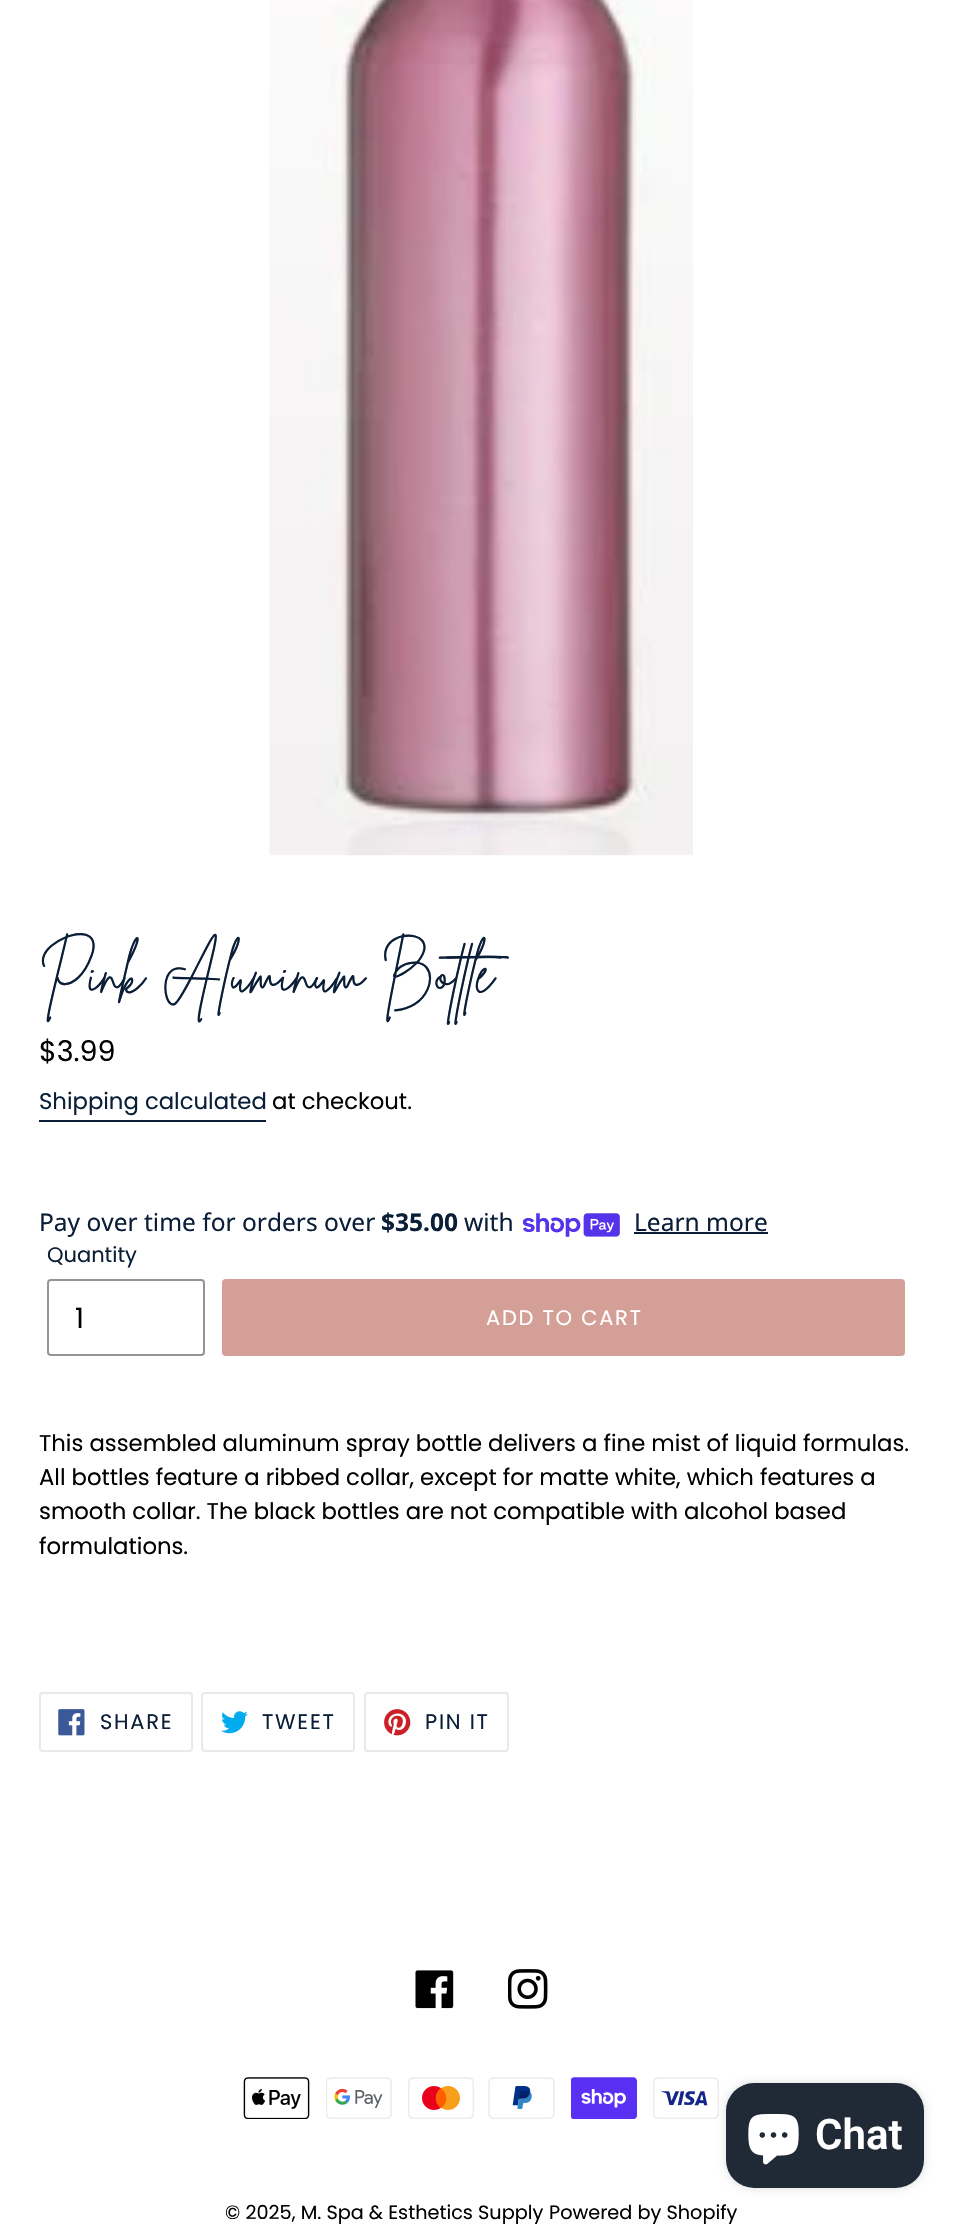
#include "include/core/SkBlurTypes.h"
#include "include/core/SkCanvas.h"
#include "include/core/SkData.h"
#include "include/core/SkFont.h"
#include "include/core/SkFontMgr.h"
#include "include/core/SkImage.h"
#include "include/core/SkMaskFilter.h"
#include "include/core/SkPaint.h"
#include "include/core/SkPathBuilder.h"
#include "include/core/SkTextBlob.h"
#include "include/effects/SkDashPathEffect.h"
#include "include/effects/SkGradientShader.h"
#include "include/utils/SkParsePath.h"

extern sk_sp<SkFontMgr> fontMgr;

static SkFont font(const char* family, int weight, float size, bool italic = false) {
    SkFontStyle style(weight, SkFontStyle::kNormal_Width,
        italic ? SkFontStyle::kItalic_Slant : SkFontStyle::kUpright_Slant);
    SkFont result(fontMgr->matchFamilyStyle(family, style), size);
    result.setSubpixel(true);
    return result;
}

static void drawLabel(SkCanvas* canvas, const char* s, float x, float y, const SkFont& font, SkColor color) {
    SkPaint ink(SkColor4f::FromColor(color));
    ink.setAntiAlias(true);
    canvas->drawString(s, x, y, font, ink);
}

static void drawTracked(SkCanvas* canvas, const char* s, float x, float y, const SkFont& font, const SkPaint& ink, float letter, float word) {
    std::vector<SkGlyphID> glyphs(font.countText(s, strlen(s), SkTextEncoding::kUTF8));
    std::vector<float> xs(glyphs.size());
    font.textToGlyphs(s, strlen(s), SkTextEncoding::kUTF8, glyphs);
    font.getXPos(glyphs, xs, x);
    float extra = 0;
    for (size_t i = 0; i < glyphs.size(); i++) {
        xs[i] += extra;
        extra += letter + word * (glyphs[i] == font.unicharToGlyph(' '));
    }
    canvas->drawTextBlob(SkTextBlob::MakeFromPosHGlyphs(glyphs, xs, y, font), 0, 0, ink);
}

static void fillRect(SkCanvas* canvas, float x, float y, float w, float h, SkColor color) {
    SkPaint ink(SkColor4f::FromColor(color));
    ink.setAntiAlias(true);
    canvas->drawRect(SkRect::MakeXYWH(x, y, w, h), ink);
}

static void fillRRect(SkCanvas* canvas, float x, float y, float w, float h, float radius, SkColor color) {
    SkPaint ink(SkColor4f::FromColor(color));
    ink.setAntiAlias(true);
    canvas->drawRoundRect(SkRect::MakeXYWH(x, y, w, h), radius, radius, ink);
}

static void drawPhoto(SkCanvas* canvas, const char* path, float x, float y, float w, float h) {
    auto image = SkImages::DeferredFromEncodedData(SkData::MakeFromFileName(path));
    canvas->drawImageRect(image, SkRect::MakeXYWH(x, y, w, h), SkSamplingOptions());
}

void draw(SkCanvas* canvas) {
    SkPaint paint;
    paint.setAntiAlias(true);
    canvas->clear(0xFFFFFFFF);
    drawPhoto(canvas, "assets/img1.png", 269, 0, 424, 856);
    SkFont font1 = font("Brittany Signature", 400, 56);
    drawLabel(canvas, "Pink Aluminum Bottle", 39, 990, font1, 0xFF0A1E38);
    SkFont font2 = font("Poppins", 400, 28.5f);
    drawLabel(canvas, "$3.99", 39, 1061, font2, 0xFF000000);
    SkFont font3 = font("Poppins", 400, 22.75f);
    drawLabel(canvas, "Shipping calculated", 39, 1109, font3, 0xFF0A1E38);
    fillRect(canvas, 39, 1120, 227, 2, 0xFF0A1E38);
    drawLabel(canvas, "at checkout.", 272, 1109, font3, 0xFF000000);
    SkFont font4 = font("Noto Sans", 400, 24.5f);
    drawLabel(canvas, "Pay over time for orders over", 39, 1231, font4, 0xFF0A1E38);
    SkFont font5 = font("Noto Sans", 700, 24.5f);
    drawLabel(canvas, "$35.00", 381, 1231, font5, 0xFF0A1E38);
    drawLabel(canvas, "with", 464, 1231, font4, 0xFF0A1E38);
    drawPhoto(canvas, "assets/img2.png", 522, 1213, 98, 24);
    drawLabel(canvas, "Learn more", 634, 1231, font4, 0xFF0A1E38);
    fillRect(canvas, 634, 1232, 134, 2, 0xFF0A1E38);
    SkFont font6 = font("Poppins", 400, 21);
    drawLabel(canvas, "Quantity", 47, 1262, font6, 0xFF0A1E38);
    paint.setStroke(true);
    paint.setStrokeWidth(2);
    paint.setColor(0xFF949494);
    canvas->drawRoundRect(SkRect::MakeXYWH(48, 1280, 156, 75), 3, 3, paint);
    SkFont font7 = font("Poppins", 400, 28);
    drawLabel(canvas, "1", 75, 1328, font7, 0xFF000000);
    fillRRect(canvas, 222, 1279, 683, 77, 4, 0xFFD49F96);
    paint.setStroke(false);
    paint.setColor(0xFFFFFFFF);
    drawTracked(canvas, "ADD TO CART", 486, 1325, font6, paint, 1.75f, 0);
    drawLabel(canvas, "This assembled aluminum spray bottle delivers a fine mist of liquid formulas.", 39, 1451, font3, 0xFF000000);
    drawLabel(canvas, "All bottles feature a ribbed collar, except for matte white, which features a", 39, 1485, font3, 0xFF000000);
    drawLabel(canvas, "smooth collar. The black bottles are not compatible with alcohol based", 39, 1519, font3, 0xFF000000);
    drawLabel(canvas, "formulations.", 39, 1554, font3, 0xFF000000);
    paint.setStroke(true);
    paint.setColor(0xFFE8E9EB);
    canvas->drawRoundRect(SkRect::MakeXYWH(40, 1693, 152, 58), 3, 3, paint);
    drawPhoto(canvas, "assets/img3.png", 58, 1709, 27, 27);
    paint.setStroke(false);
    paint.setColor(0xFF0A1E38);
    drawTracked(canvas, "SHARE", 100, 1729, font6, paint, 1.75f, 0);
    paint.setStroke(true);
    paint.setColor(0xFFE8E9EB);
    canvas->drawRoundRect(SkRect::MakeXYWH(202, 1693, 152, 58), 3, 3, paint);
    drawPhoto(canvas, "assets/img4.png", 221, 1711, 27, 23);
    paint.setStroke(false);
    paint.setColor(0xFF0A1E38);
    drawTracked(canvas, "TWEET", 262, 1729, font6, paint, 1.75f, 0);
    paint.setStroke(true);
    paint.setColor(0xFFE8E9EB);
    canvas->drawRoundRect(SkRect::MakeXYWH(365, 1693, 143, 58), 3, 3, paint);
    drawPhoto(canvas, "assets/img5.png", 384, 1709, 27, 27);
    paint.setStroke(false);
    paint.setColor(0xFF0A1E38);
    drawTracked(canvas, "PIN IT", 425, 1729, font6, paint, 1.75f, 0);
    drawPhoto(canvas, "assets/img6.png", 415, 1970, 39, 39);
    drawPhoto(canvas, "assets/img7.png", 508, 1969, 40, 40);
    drawPhoto(canvas, "assets/img8.png", 243, 2077, 67, 42);
    drawPhoto(canvas, "assets/img9.png", 326, 2077, 66, 42);
    drawPhoto(canvas, "assets/img10.png", 408, 2077, 66, 42);
    drawPhoto(canvas, "assets/img11.png", 488, 2077, 67, 42);
    drawPhoto(canvas, "assets/img12.png", 571, 2077, 66, 42);
    drawPhoto(canvas, "assets/img13.png", 653, 2077, 66, 42);
    SkFont font8 = font("Poppins", 400, 19.25f);
    drawLabel(canvas, "© 2025, M. Spa & Esthetics Supply", 225, 2219, font8, 0xFF000000);
    drawLabel(canvas, "Powered by Shopify", 549, 2219, font8, 0xFF000000);
    paint.setColor(0x26000000);
    paint.setMaskFilter(SkMaskFilter::MakeBlur(kNormal_SkBlurStyle, 4.5f));
    canvas->drawRoundRect(SkRect::MakeXYWH(726, 2083, 198, 105), 28, 28, paint);
    paint.setMaskFilter(nullptr);
    fillRRect(canvas, 726, 2083, 198, 105, 28, 0xFF202A36);
    drawPhoto(canvas, "assets/img14.png", 748, 2114, 51, 51);
    SkFont font9 = font("Roboto", 600, 42);
    drawLabel(canvas, "Chat", 815, 2149, font9, 0xFFFFFFFF);
}
